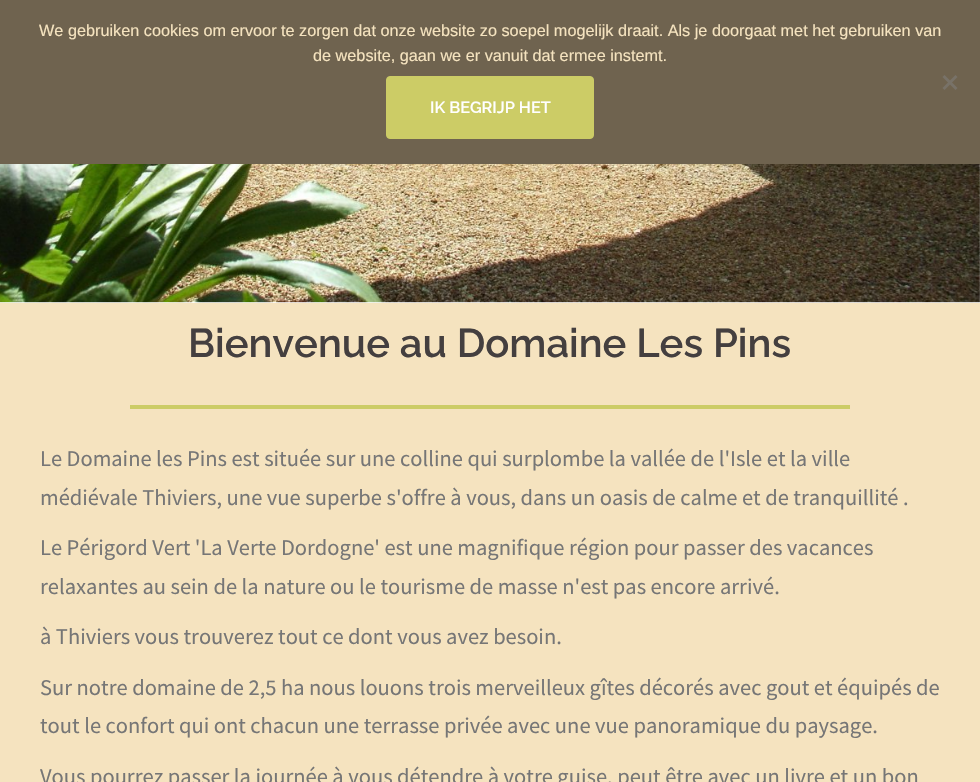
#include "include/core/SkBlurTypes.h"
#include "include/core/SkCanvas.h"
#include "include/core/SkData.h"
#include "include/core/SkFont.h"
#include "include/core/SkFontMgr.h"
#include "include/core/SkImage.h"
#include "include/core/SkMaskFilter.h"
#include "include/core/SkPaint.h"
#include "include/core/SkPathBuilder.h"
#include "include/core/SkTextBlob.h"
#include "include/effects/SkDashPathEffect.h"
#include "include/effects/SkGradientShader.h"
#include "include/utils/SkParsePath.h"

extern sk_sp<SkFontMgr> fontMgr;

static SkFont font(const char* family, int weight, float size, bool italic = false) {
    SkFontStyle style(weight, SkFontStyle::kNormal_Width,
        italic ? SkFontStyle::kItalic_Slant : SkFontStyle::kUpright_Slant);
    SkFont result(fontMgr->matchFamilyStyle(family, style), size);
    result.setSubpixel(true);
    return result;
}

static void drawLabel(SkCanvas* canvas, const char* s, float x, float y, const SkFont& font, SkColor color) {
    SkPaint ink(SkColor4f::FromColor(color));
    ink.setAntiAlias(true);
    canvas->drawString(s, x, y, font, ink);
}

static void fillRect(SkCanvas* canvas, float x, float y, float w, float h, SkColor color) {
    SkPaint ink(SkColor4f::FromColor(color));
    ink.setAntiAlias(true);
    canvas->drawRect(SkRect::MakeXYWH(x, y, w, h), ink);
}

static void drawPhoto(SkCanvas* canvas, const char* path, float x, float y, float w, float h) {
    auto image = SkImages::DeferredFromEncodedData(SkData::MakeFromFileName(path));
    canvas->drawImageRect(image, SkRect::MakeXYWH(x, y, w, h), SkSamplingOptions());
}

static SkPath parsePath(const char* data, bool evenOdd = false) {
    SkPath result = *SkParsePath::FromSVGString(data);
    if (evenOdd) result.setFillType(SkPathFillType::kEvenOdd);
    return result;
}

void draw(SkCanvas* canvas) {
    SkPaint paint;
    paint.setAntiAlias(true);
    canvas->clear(0xFFFFFFFF);
    fillRect(canvas, 0, 0, 980, 164, 0xFF6F634F);
    SkFont font1 = font("Liberation Sans", 400, 16.25f);
    drawLabel(canvas, "We gebruiken cookies om ervoor te zorgen dat onze website zo soepel mogelijk draait. Als je doorgaat met het gebruiken van", 39, 36, font1, 0xFFF5E3BF);
    drawLabel(canvas, "de website, gaan we er vanuit dat ermee instemt.", 313, 61, font1, 0xFFF5E3BF);
    paint.setColor(0xFF787268);
    canvas->drawPath(parsePath("M955.5 75L957.5 77L944.5 90L942.5 88Z"), paint);
    canvas->drawPath(parsePath("M942.5 77L944.5 75L957.5 88L955.5 90Z"), paint);
    paint.setColor(0xFFCCCC66);
    canvas->drawRoundRect(SkRect::MakeXYWH(386.5f, 76.5f, 207, 62), 3.5f, 3.5f, paint);
    paint.setStroke(true);
    paint.setStrokeWidth(1);
    canvas->drawRoundRect(SkRect::MakeXYWH(386.5f, 76.5f, 207, 62), 3.5f, 3.5f, paint);
    SkFont font2 = font("Raleway", 600, 16.25f);
    drawLabel(canvas, "IK BEGRIJP HET", 430, 113, font2, 0xFFFFFFFF);
    drawPhoto(canvas, "assets/img1.png", 0, 164, 980, 139);
    fillRect(canvas, 0, 303, 980, 479, 0xFFF5E3BF);
    SkFont font3 = font("Raleway", 600, 40);
    drawLabel(canvas, "Bienvenue au Domaine Les Pins", 188, 357, font3, 0xFF443F3F);
    fillRect(canvas, 130, 405, 720, 4, 0xFFCCCC66);
    SkFont font4 = font("Source Sans Pro", 400, 22.5f);
    drawLabel(canvas, "Le Domaine les Pins est située sur une colline qui surplombe la vallée de l'Isle et la ville", 40, 466, font4, 0xFF767676);
    drawLabel(canvas, "médiévale Thiviers, une vue superbe s'offre à vous, dans un oasis de calme et de tranquillité .", 40, 505, font4, 0xFF767676);
    drawLabel(canvas, "Le Périgord Vert 'La Verte Dordogne' est une magnifique région pour passer des vacances", 40, 555, font4, 0xFF767676);
    drawLabel(canvas, "relaxantes au sein de la nature ou le tourisme de masse n'est pas encore arrivé.", 40, 594, font4, 0xFF767676);
    drawLabel(canvas, "à Thiviers vous trouverez tout ce dont vous avez besoin.", 40, 644, font4, 0xFF767676);
    drawLabel(canvas, "Sur notre domaine de 2,5 ha nous louons trois merveilleux gîtes décorés avec gout et équipés de", 40, 695, font4, 0xFF767676);
    drawLabel(canvas, "tout le confort qui ont chacun une terrasse privée avec une vue panoramique du paysage.", 40, 733, font4, 0xFF767676);
    drawLabel(canvas, "Vous pourrez passer la journée à vous détendre à votre guise, peut être avec un livre et un bon", 40, 784, font4, 0xFF767676);
}
